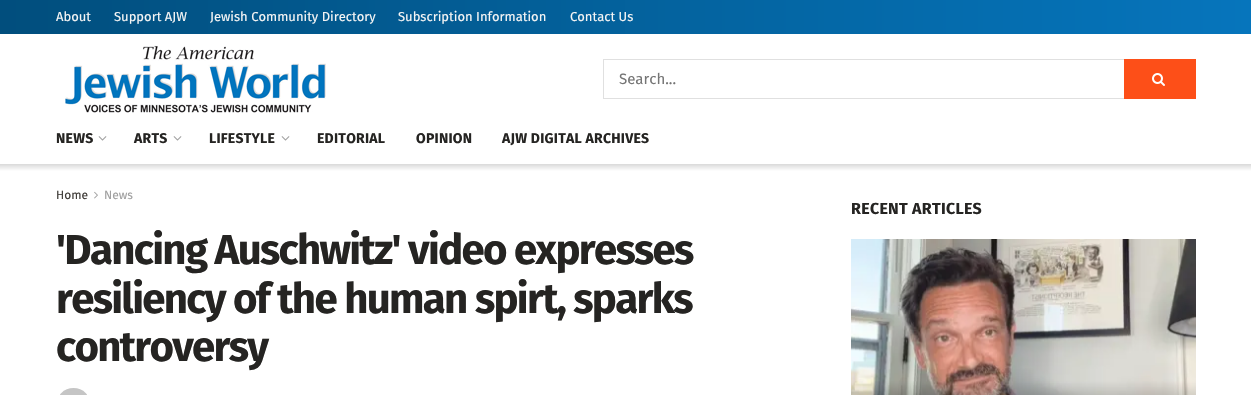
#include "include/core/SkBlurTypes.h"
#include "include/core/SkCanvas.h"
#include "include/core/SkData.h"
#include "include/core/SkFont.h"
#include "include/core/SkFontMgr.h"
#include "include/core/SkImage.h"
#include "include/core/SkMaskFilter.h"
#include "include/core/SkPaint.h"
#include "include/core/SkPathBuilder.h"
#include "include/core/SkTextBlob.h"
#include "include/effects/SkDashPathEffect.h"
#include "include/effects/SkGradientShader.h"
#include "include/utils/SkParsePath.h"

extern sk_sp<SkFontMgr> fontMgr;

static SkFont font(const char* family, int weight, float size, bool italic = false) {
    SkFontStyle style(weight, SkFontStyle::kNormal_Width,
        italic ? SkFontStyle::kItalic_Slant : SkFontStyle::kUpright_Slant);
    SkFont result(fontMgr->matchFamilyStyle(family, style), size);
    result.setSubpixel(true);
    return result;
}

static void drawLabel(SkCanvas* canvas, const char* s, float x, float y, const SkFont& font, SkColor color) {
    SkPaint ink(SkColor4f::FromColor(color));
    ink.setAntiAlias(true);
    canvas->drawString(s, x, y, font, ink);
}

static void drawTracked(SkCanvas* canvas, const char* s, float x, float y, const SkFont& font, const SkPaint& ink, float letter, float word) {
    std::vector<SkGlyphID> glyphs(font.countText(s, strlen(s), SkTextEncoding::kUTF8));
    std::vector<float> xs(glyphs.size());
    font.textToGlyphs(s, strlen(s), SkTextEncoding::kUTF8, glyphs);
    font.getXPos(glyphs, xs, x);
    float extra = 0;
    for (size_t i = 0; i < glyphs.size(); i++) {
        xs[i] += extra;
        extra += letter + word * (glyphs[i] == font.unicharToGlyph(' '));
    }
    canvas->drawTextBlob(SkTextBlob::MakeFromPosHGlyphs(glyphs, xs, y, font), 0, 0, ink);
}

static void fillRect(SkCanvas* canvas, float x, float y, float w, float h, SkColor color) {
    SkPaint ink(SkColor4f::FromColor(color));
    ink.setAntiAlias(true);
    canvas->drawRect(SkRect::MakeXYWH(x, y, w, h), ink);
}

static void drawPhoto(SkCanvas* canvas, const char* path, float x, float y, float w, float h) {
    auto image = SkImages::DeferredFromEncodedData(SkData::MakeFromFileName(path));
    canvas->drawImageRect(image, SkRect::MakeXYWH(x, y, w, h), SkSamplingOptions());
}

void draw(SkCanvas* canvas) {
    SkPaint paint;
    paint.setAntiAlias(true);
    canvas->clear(0xFFFFFFFF);
    {
        const SkColor colors[] = {0xFF014E7D, 0xFF0675BC};
        const float stops[] = {0, 1};
        const SkPoint ends[] = {{0, 17}, {1251, 17}};
        paint.setShader(SkGradientShader::MakeLinear(ends, colors, stops, 2, SkTileMode::kClamp));
        paint.setAlpha(255);
    }
    canvas->drawRect(SkRect::MakeXYWH(0, 0, 1251, 34), paint);
    SkFont font1 = font("Fira Sans", 400, 13);
    drawLabel(canvas, "About", 56, 21, font1, 0xFFF5F5F5);
    drawLabel(canvas, "Support AJW", 114, 21, font1, 0xFFF5F5F5);
    drawLabel(canvas, "Jewish Community Directory", 210, 21, font1, 0xFFF5F5F5);
    drawLabel(canvas, "Subscription Information", 398, 21, font1, 0xFFF5F5F5);
    drawLabel(canvas, "Contact Us", 570, 21, font1, 0xFFF5F5F5);
    drawPhoto(canvas, "assets/img1.png", 65, 45, 261, 68);
    paint.setStroke(true);
    paint.setStrokeWidth(1);
    paint.setShader(nullptr);
    paint.setColor(0xFFE0E0E0);
    canvas->drawRect(SkRect::MakeXYWH(603.5f, 59.5f, 592, 39), paint);
    SkFont font2 = font("Fira Sans", 400, 15);
    drawLabel(canvas, "Search...", 619, 84, font2, 0xFF757575);
    fillRect(canvas, 1124, 59, 72, 40, 0xFFFD4F18);
    drawPhoto(canvas, "assets/img2.png", 1152, 73, 13, 13);
    SkFont font3 = font("Fira Sans", 700, 14);
    paint.setStroke(false);
    paint.setColor(0xFF252422);
    drawTracked(canvas, "NEWS", 56, 143, font3, paint, 0.25f, 0);
    drawPhoto(canvas, "assets/img3.png", 98, 136, 9, 5);
    drawTracked(canvas, "ARTS", 134, 143, font3, paint, 0.25f, 0);
    drawPhoto(canvas, "assets/img3.png", 173, 136, 9, 5);
    drawTracked(canvas, "LIFESTYLE", 209, 143, font3, paint, 0.25f, 0);
    drawPhoto(canvas, "assets/img3.png", 281, 136, 9, 5);
    drawTracked(canvas, "EDITORIAL", 317, 143, font3, paint, 0.25f, 0);
    drawTracked(canvas, "OPINION", 416, 143, font3, paint, 0.25f, 0);
    drawTracked(canvas, "AJW DIGITAL ARCHIVES", 502, 143, font3, paint, 0.25f, 0);
    {
        const SkColor colors[] = {0xFFD9D9D9, 0xFFFFFFFF};
        const float stops[] = {0, 1};
        const SkPoint ends[] = {{626, 164}, {626, 171}};
        paint.setShader(SkGradientShader::MakeLinear(ends, colors, stops, 2, SkTileMode::kClamp));
        paint.setAlpha(255);
    }
    canvas->drawRect(SkRect::MakeXYWH(0, 164, 1251, 7), paint);
    SkFont font4 = font("Fira Sans", 400, 12);
    drawLabel(canvas, "Home", 56, 199, font4, 0xFF403D39);
    drawPhoto(canvas, "assets/img4.png", 94, 191, 4, 8);
    drawLabel(canvas, "News", 104, 199, font4, 0xFFA0A0A0);
    SkFont font5 = font("Fira Sans", 700, 42);
    paint.setShader(nullptr);
    paint.setColor(0xFF252422);
    drawTracked(canvas, "'Dancing Auschwitz' video expresses", 56, 264, font5, paint, -1.7f, 0);
    drawTracked(canvas, "resiliency of the human spirt, sparks", 56, 313, font5, paint, -1.7f, 0);
    drawTracked(canvas, "controversy", 56, 361, font5, paint, -1.7f, 0);
    drawPhoto(canvas, "assets/img5.png", 60, 388, 27, 7);
    SkFont font6 = font("Fira Sans", 700, 16);
    drawTracked(canvas, "RECENT ARTICLES", 851, 214, font6, paint, 0.3f, 0);
    drawPhoto(canvas, "assets/img6.png", 851, 239, 345, 156);
}
